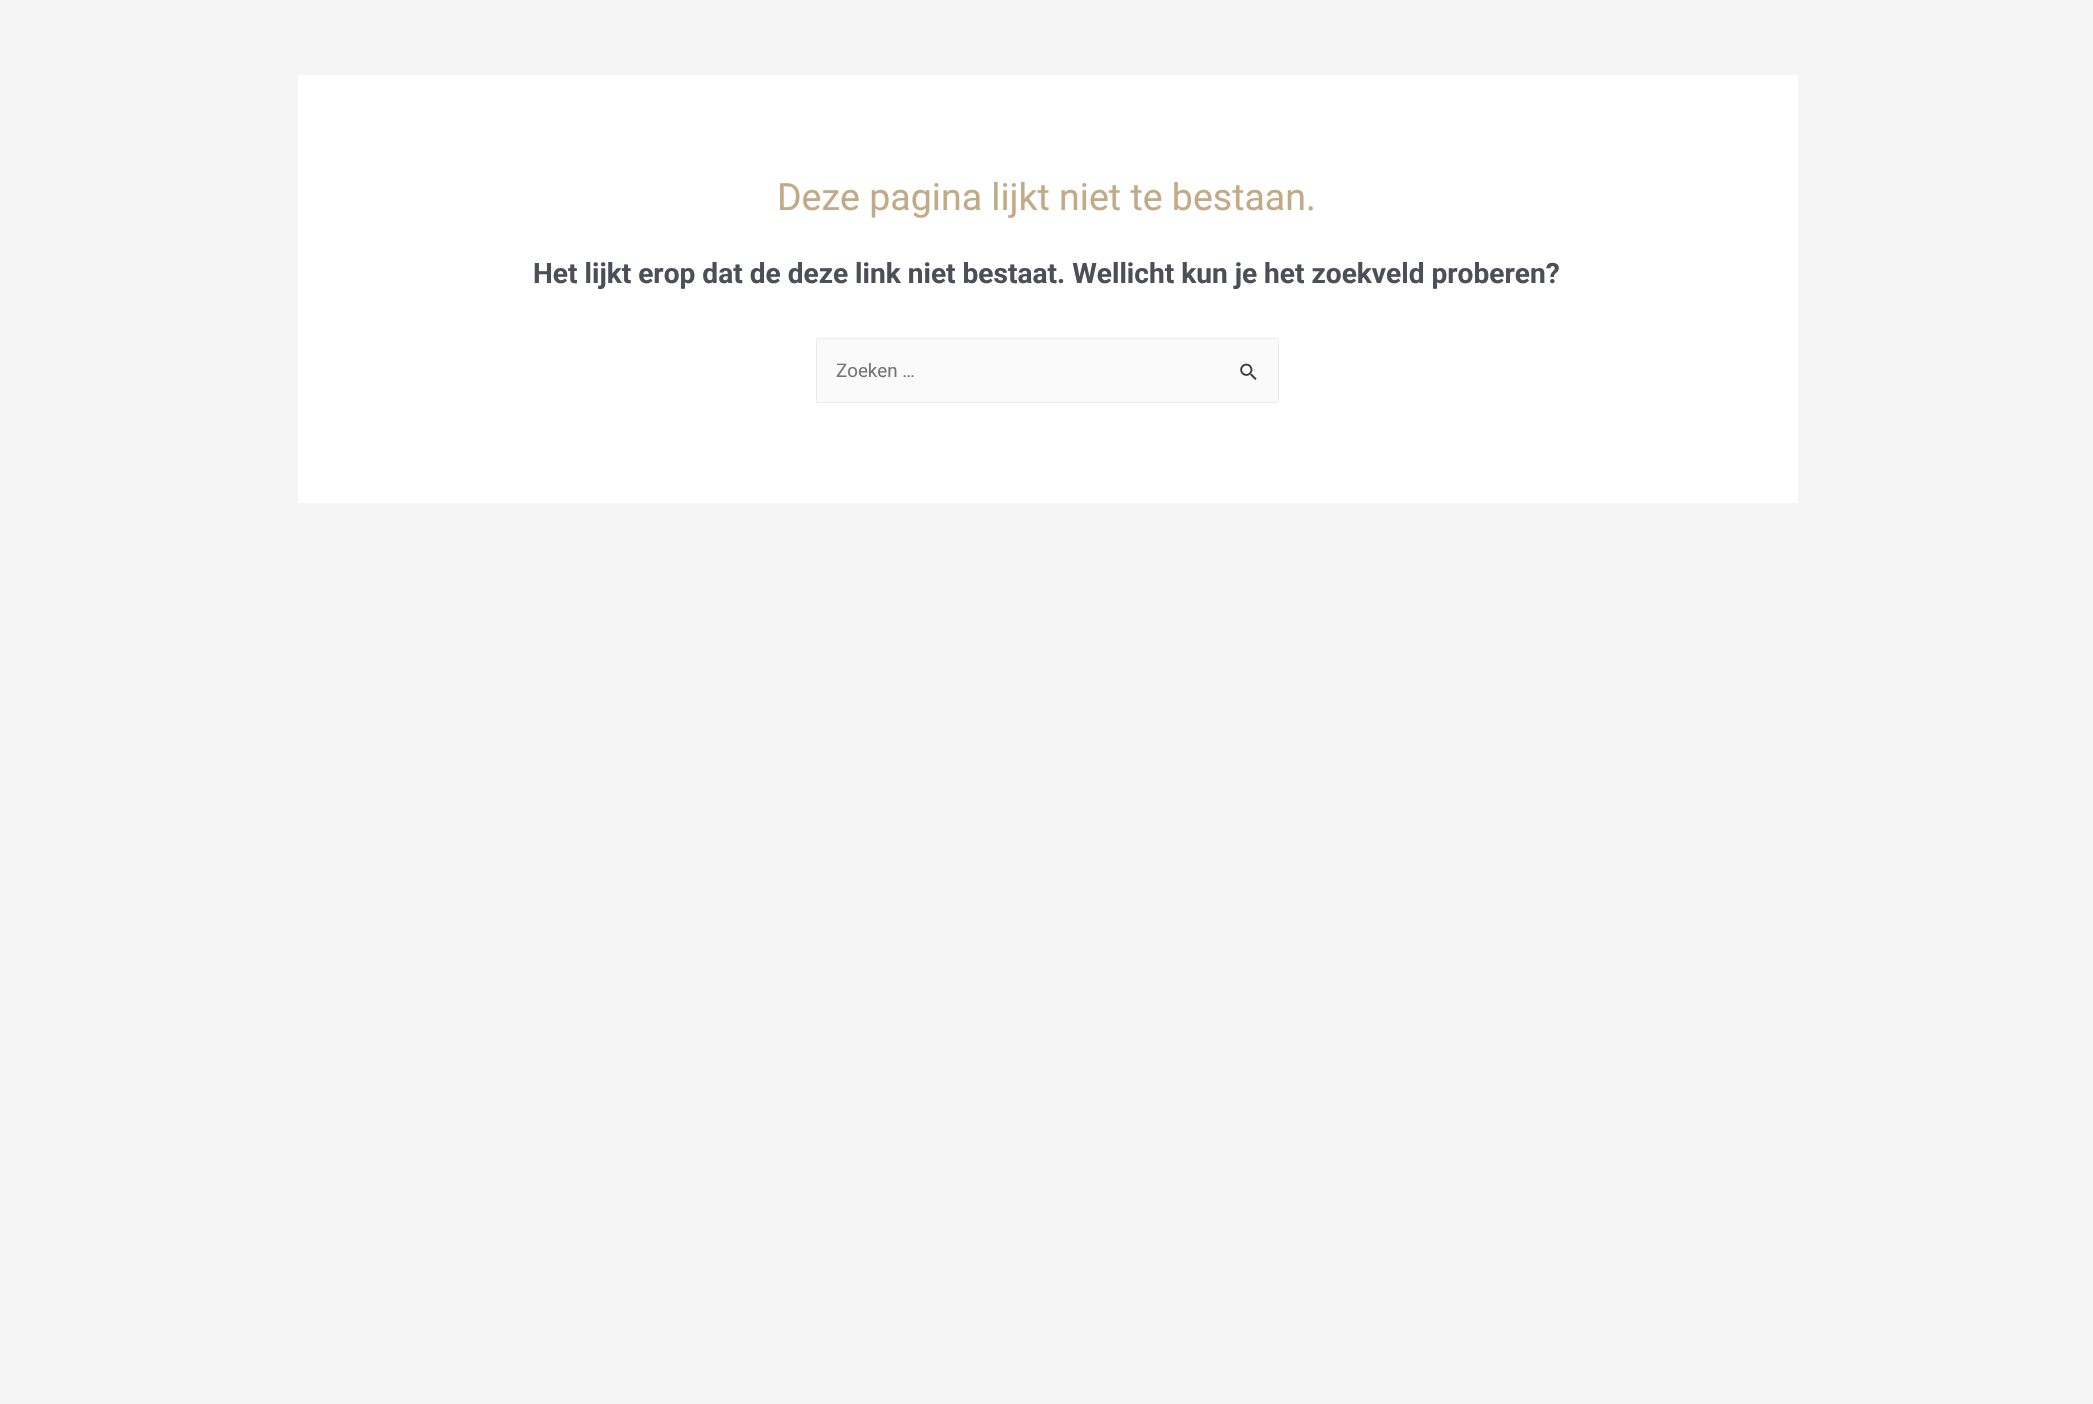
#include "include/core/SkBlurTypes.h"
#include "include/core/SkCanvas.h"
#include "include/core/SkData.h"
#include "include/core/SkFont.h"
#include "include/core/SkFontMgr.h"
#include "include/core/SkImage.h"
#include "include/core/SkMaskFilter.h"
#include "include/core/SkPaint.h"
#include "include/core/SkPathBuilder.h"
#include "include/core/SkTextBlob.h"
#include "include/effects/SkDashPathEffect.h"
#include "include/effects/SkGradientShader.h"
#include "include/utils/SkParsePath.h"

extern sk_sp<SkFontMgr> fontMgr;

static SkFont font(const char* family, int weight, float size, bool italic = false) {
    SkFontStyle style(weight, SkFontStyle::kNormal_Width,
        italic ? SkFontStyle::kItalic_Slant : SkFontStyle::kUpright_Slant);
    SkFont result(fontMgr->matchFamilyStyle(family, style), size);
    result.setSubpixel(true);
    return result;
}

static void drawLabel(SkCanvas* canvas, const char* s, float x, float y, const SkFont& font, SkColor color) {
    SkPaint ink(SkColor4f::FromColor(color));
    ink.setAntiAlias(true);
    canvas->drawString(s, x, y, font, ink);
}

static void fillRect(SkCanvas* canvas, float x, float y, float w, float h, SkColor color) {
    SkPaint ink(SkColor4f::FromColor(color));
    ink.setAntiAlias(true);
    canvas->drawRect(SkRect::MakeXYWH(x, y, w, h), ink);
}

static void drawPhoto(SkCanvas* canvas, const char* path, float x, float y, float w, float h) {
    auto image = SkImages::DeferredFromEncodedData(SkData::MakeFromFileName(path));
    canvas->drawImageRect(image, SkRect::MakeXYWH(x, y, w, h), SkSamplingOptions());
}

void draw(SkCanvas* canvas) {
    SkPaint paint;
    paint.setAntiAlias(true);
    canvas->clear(0xFFF5F5F5);
    fillRect(canvas, 298, 75, 1500, 428, 0xFFFFFFFF);
    SkFont font1 = font("Roboto", 400, 37.5f);
    drawLabel(canvas, "Deze pagina lijkt niet te bestaan.", 777, 210, font1, 0xFFC2AA87);
    SkFont font2 = font("Roboto", 700, 28.1f);
    drawLabel(canvas, "Het lijkt erop dat de deze link niet bestaat. Wellicht kun je het zoekveld proberen?", 533, 283, font2, 0xFF4B4F58);
    paint.setColor(0xFFFAFAFA);
    canvas->drawRoundRect(SkRect::MakeXYWH(816.5f, 338.5f, 462, 64), 2, 2, paint);
    paint.setStroke(true);
    paint.setStrokeWidth(1);
    paint.setColor(0xFFEAEAEA);
    canvas->drawRoundRect(SkRect::MakeXYWH(816.5f, 338.5f, 462, 64), 2, 2, paint);
    SkFont font3 = font("Roboto", 400, 18.75f);
    drawLabel(canvas, "Zoeken …", 836, 377, font3, 0xFF757575);
    drawPhoto(canvas, "assets/img1.png", 1240, 363, 17, 17);
}
